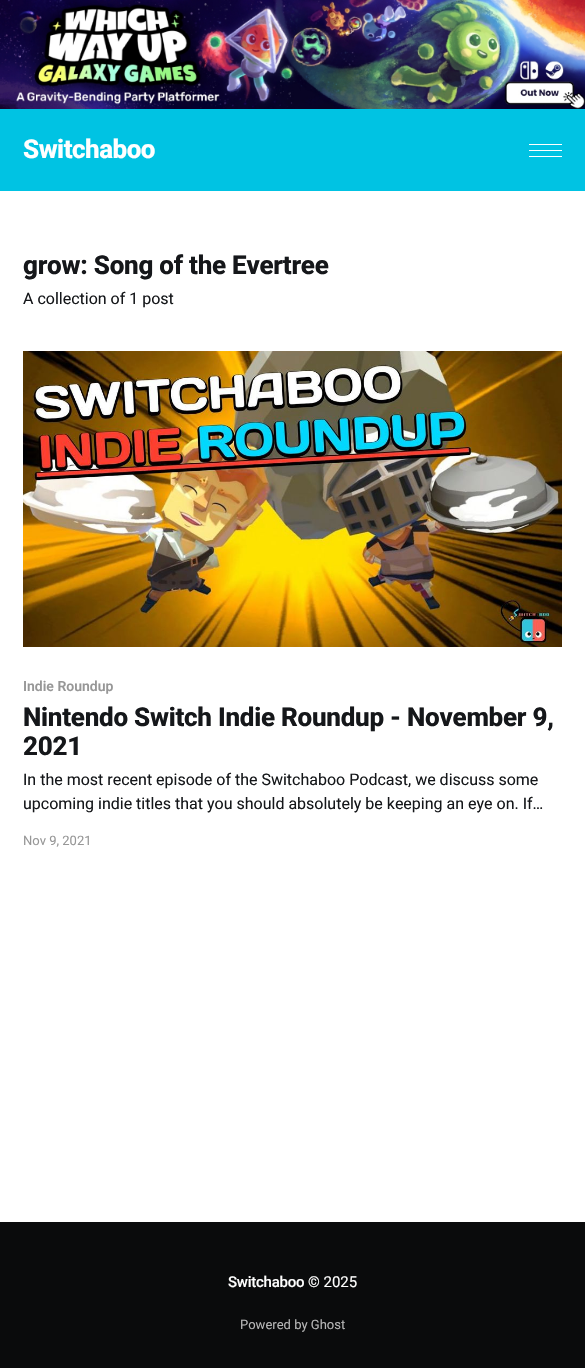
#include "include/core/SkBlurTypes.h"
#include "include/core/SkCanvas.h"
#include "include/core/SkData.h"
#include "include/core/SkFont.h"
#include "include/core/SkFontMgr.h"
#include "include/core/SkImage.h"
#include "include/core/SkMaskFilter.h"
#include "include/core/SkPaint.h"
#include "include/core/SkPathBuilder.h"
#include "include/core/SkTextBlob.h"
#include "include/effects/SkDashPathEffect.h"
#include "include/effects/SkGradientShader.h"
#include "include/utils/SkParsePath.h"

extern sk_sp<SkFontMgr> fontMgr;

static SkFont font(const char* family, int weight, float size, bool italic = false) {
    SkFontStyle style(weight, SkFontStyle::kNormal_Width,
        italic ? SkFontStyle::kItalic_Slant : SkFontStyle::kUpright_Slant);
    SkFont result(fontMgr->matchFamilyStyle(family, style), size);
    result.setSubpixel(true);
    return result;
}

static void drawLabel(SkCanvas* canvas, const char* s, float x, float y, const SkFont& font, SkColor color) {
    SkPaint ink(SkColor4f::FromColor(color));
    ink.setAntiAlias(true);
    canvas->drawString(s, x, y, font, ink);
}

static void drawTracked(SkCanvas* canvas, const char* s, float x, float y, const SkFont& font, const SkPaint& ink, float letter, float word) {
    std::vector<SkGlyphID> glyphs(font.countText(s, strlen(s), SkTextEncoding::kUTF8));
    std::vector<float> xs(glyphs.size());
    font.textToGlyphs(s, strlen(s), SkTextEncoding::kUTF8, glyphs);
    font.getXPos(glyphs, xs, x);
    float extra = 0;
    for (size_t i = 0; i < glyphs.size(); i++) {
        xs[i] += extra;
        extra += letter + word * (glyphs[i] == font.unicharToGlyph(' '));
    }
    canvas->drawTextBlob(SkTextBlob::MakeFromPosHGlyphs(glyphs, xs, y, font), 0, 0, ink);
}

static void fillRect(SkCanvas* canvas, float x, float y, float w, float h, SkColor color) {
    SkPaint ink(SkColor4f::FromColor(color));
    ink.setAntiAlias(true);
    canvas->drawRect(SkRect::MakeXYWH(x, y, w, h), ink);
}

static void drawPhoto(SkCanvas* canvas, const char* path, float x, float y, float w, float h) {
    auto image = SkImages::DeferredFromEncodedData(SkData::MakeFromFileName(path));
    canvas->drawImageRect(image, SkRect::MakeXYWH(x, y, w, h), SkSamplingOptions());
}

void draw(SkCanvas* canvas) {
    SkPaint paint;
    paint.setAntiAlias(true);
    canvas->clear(0xFFFFFFFF);
    drawPhoto(canvas, "assets/img1.png", 0, 0, 585, 109);
    fillRect(canvas, 0, 109, 585, 82, 0xFF00C3E3);
    SkFont font1 = font("Roboto", 800, 26);
    paint.setColor(0xFFFFFFFF);
    drawTracked(canvas, "Switchaboo", 23, 158, font1, paint, -0.5f, 0);
    fillRect(canvas, 529, 144, 33, 1, 0xFFFFFFFF);
    fillRect(canvas, 529, 156, 33, 1, 0xFFFFFFFF);
    fillRect(canvas, 529, 150, 33, 1, 0xFFFFFFFF);
    paint.setColor(0xFF15171A);
    drawTracked(canvas, "grow: Song of the Evertree", 23, 274, font1, paint, -0.25f, 0);
    SkFont font2 = font("Roboto", 400, 16);
    drawLabel(canvas, "A collection of 1 post", 23, 304, font2, 0xFF15171A);
    drawPhoto(canvas, "assets/img2.png", 23, 351, 539, 296);
    SkFont font3 = font("Roboto", 600, 14);
    drawLabel(canvas, "Indie Roundup", 23, 691, font3, 0xFF979797);
    drawTracked(canvas, "Nintendo Switch Indie Roundup - November 9,", 23, 726, font1, paint, -0.25f, 0);
    drawTracked(canvas, "2021", 23, 755, font1, paint, -0.25f, 0);
    drawLabel(canvas, "In the most recent episode of the Switchaboo Podcast, we discuss some", 23, 785, font2, 0xFF15171A);
    drawLabel(canvas, "upcoming indie titles that you should absolutely be keeping an eye on. If…", 23, 809, font2, 0xFF15171A);
    SkFont font4 = font("Roboto", 400, 13);
    drawLabel(canvas, "Nov 9, 2021", 23, 845, font4, 0xFF979797);
    fillRect(canvas, 0, 1222, 585, 146, 0xFF0A0B0C);
    SkFont font5 = font("Roboto", 500, 15);
    paint.setColor(0xFFFFFFFF);
    drawTracked(canvas, "Switchaboo", 228, 1287, font5, paint, -0.25f, 0);
    SkFont font6 = font("Roboto", 400, 15);
    drawLabel(canvas, "© 2025", 308, 1287, font6, 0xFFFFFFFF);
    drawLabel(canvas, "Powered by Ghost", 240, 1329, font4, 0xFFB6B6B6);
}
